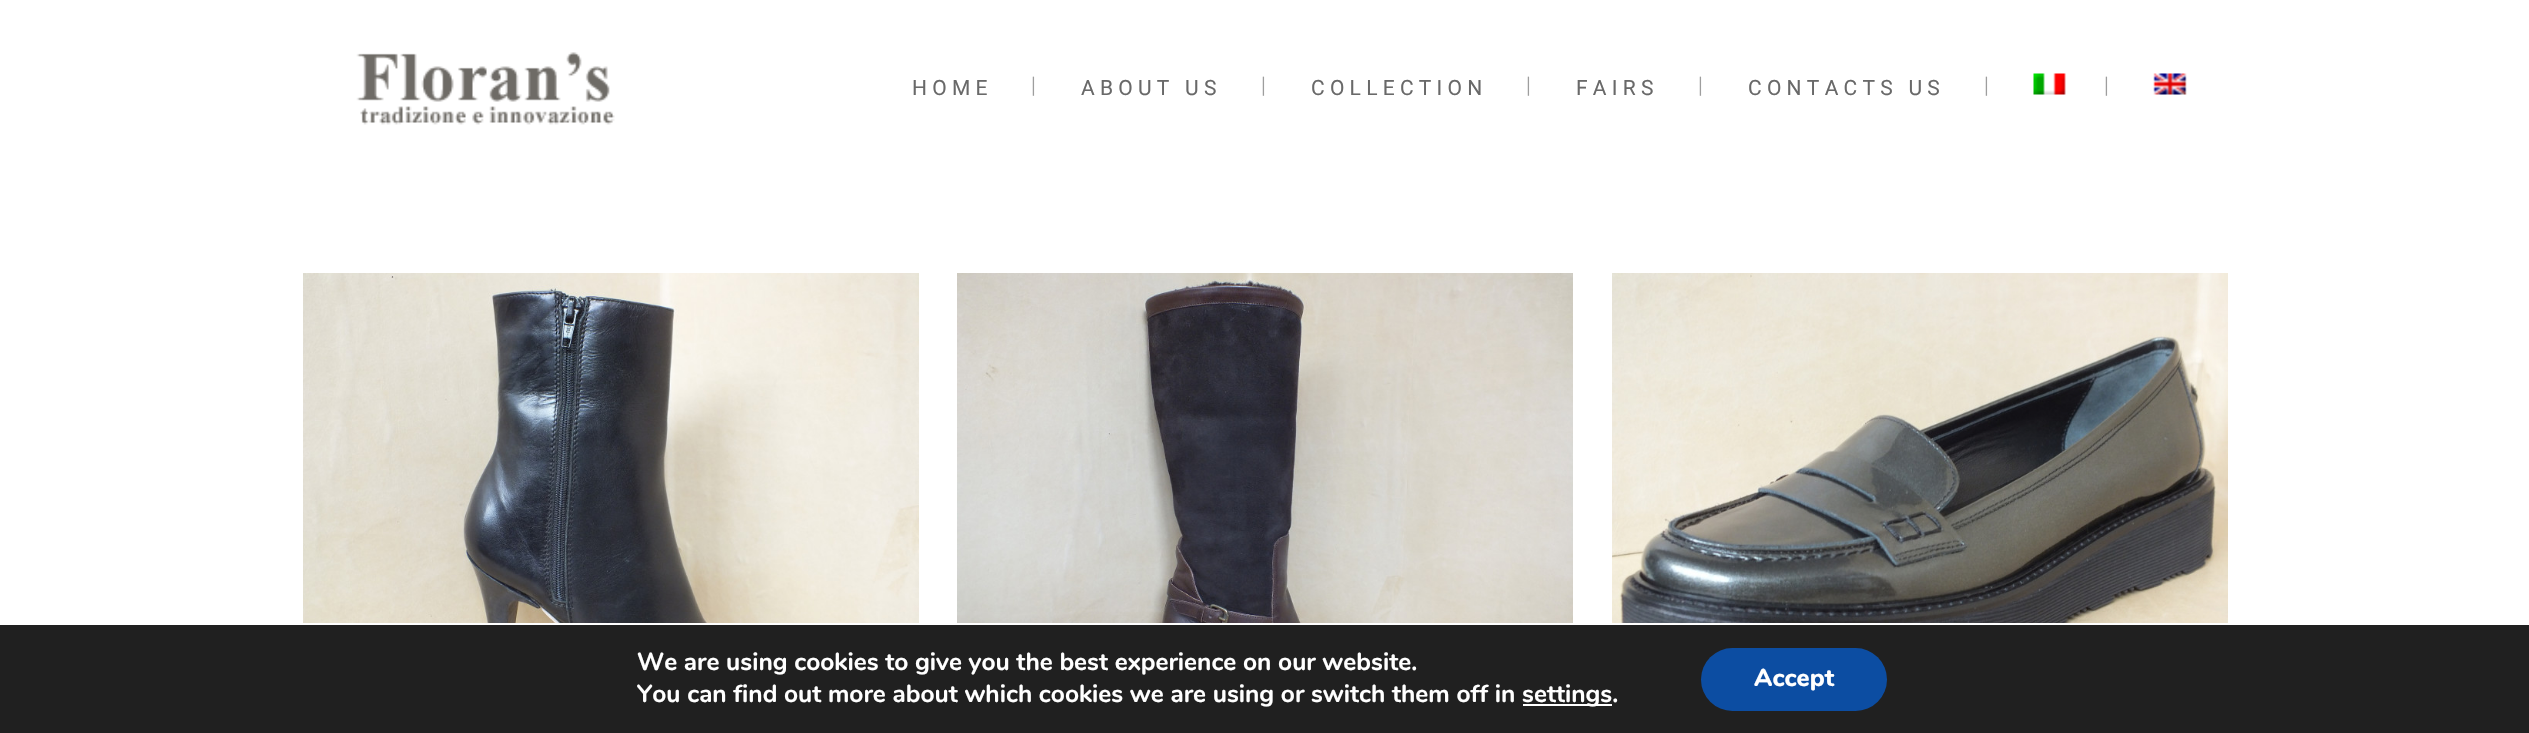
#include "include/core/SkBlurTypes.h"
#include "include/core/SkCanvas.h"
#include "include/core/SkData.h"
#include "include/core/SkFont.h"
#include "include/core/SkFontMgr.h"
#include "include/core/SkImage.h"
#include "include/core/SkMaskFilter.h"
#include "include/core/SkPaint.h"
#include "include/core/SkPathBuilder.h"
#include "include/core/SkTextBlob.h"
#include "include/effects/SkDashPathEffect.h"
#include "include/effects/SkGradientShader.h"
#include "include/utils/SkParsePath.h"

extern sk_sp<SkFontMgr> fontMgr;

static SkFont font(const char* family, int weight, float size, bool italic = false) {
    SkFontStyle style(weight, SkFontStyle::kNormal_Width,
        italic ? SkFontStyle::kItalic_Slant : SkFontStyle::kUpright_Slant);
    SkFont result(fontMgr->matchFamilyStyle(family, style), size);
    result.setSubpixel(true);
    return result;
}

static void drawLabel(SkCanvas* canvas, const char* s, float x, float y, const SkFont& font, SkColor color) {
    SkPaint ink(SkColor4f::FromColor(color));
    ink.setAntiAlias(true);
    canvas->drawString(s, x, y, font, ink);
}

static void drawTracked(SkCanvas* canvas, const char* s, float x, float y, const SkFont& font, const SkPaint& ink, float letter, float word) {
    std::vector<SkGlyphID> glyphs(font.countText(s, strlen(s), SkTextEncoding::kUTF8));
    std::vector<float> xs(glyphs.size());
    font.textToGlyphs(s, strlen(s), SkTextEncoding::kUTF8, glyphs);
    font.getXPos(glyphs, xs, x);
    float extra = 0;
    for (size_t i = 0; i < glyphs.size(); i++) {
        xs[i] += extra;
        extra += letter + word * (glyphs[i] == font.unicharToGlyph(' '));
    }
    canvas->drawTextBlob(SkTextBlob::MakeFromPosHGlyphs(glyphs, xs, y, font), 0, 0, ink);
}

static void fillRect(SkCanvas* canvas, float x, float y, float w, float h, SkColor color) {
    SkPaint ink(SkColor4f::FromColor(color));
    ink.setAntiAlias(true);
    canvas->drawRect(SkRect::MakeXYWH(x, y, w, h), ink);
}

static void fillRRect(SkCanvas* canvas, float x, float y, float w, float h, float radius, SkColor color) {
    SkPaint ink(SkColor4f::FromColor(color));
    ink.setAntiAlias(true);
    canvas->drawRoundRect(SkRect::MakeXYWH(x, y, w, h), radius, radius, ink);
}

static void drawPhoto(SkCanvas* canvas, const char* path, float x, float y, float w, float h) {
    auto image = SkImages::DeferredFromEncodedData(SkData::MakeFromFileName(path));
    canvas->drawImageRect(image, SkRect::MakeXYWH(x, y, w, h), SkSamplingOptions());
}

void draw(SkCanvas* canvas) {
    SkPaint paint;
    paint.setAntiAlias(true);
    canvas->clear(0xFFFFFFFF);
    drawPhoto(canvas, "assets/img1.png", 356, 52, 259, 73);
    SkFont font1 = font("Roboto", 400, 21);
    paint.setColor(0xFF696969);
    drawTracked(canvas, "HOME", 912, 95, font1, paint, 5.25f, 0);
    SkFont font2 = font("Raleway", 400, 21);
    drawLabel(canvas, "|", 1031, 93, font2, 0xFF9E9E9E);
    drawTracked(canvas, "ABOUT US", 1081, 95, font1, paint, 5.25f, 0);
    drawLabel(canvas, "|", 1261, 93, font2, 0xFF9E9E9E);
    drawTracked(canvas, "COLLECTION", 1311, 95, font1, paint, 5.25f, 0);
    drawLabel(canvas, "|", 1526, 93, font2, 0xFF9E9E9E);
    drawTracked(canvas, "FAIRS", 1576, 95, font1, paint, 5.25f, 0);
    drawLabel(canvas, "|", 1698, 93, font2, 0xFF9E9E9E);
    drawTracked(canvas, "CONTACTS US", 1748, 95, font1, paint, 5.25f, 0);
    drawLabel(canvas, "|", 1984, 93, font2, 0xFF9E9E9E);
    drawPhoto(canvas, "assets/img2.png", 2033, 73, 33, 22);
    drawLabel(canvas, "|", 2104, 93, font2, 0xFF9E9E9E);
    drawPhoto(canvas, "assets/img3.png", 2153, 73, 34, 22);
    drawPhoto(canvas, "assets/img4.png", 303, 273, 616, 350);
    drawPhoto(canvas, "assets/img5.png", 957, 273, 616, 350);
    drawPhoto(canvas, "assets/img6.png", 1612, 273, 616, 350);
    fillRect(canvas, 0, 625, 2529, 108, 0xFF202020);
    SkFont font3 = font("Nunito", 700, 24.5f);
    drawLabel(canvas, "We are using cookies to give you the best experience on our website.", 637, 670, font3, 0xFFFFFFFF);
    drawLabel(canvas, "You can find out more about which cookies we are using or switch them off in", 637, 702, font3, 0xFFFFFFFF);
    fillRect(canvas, 1523, 704, 89, 2, 0xFFFFFFFF);
    drawLabel(canvas, "settings.", 1522, 702, font3, 0xFFFFFFFF);
    fillRRect(canvas, 1701, 648, 186, 63, 31.5f, 0xFF0C4DA2);
    SkFont font4 = font("Nunito", 800, 24.5f);
    drawLabel(canvas, "Accept", 1754, 686, font4, 0xFFFFFFFF);
}
